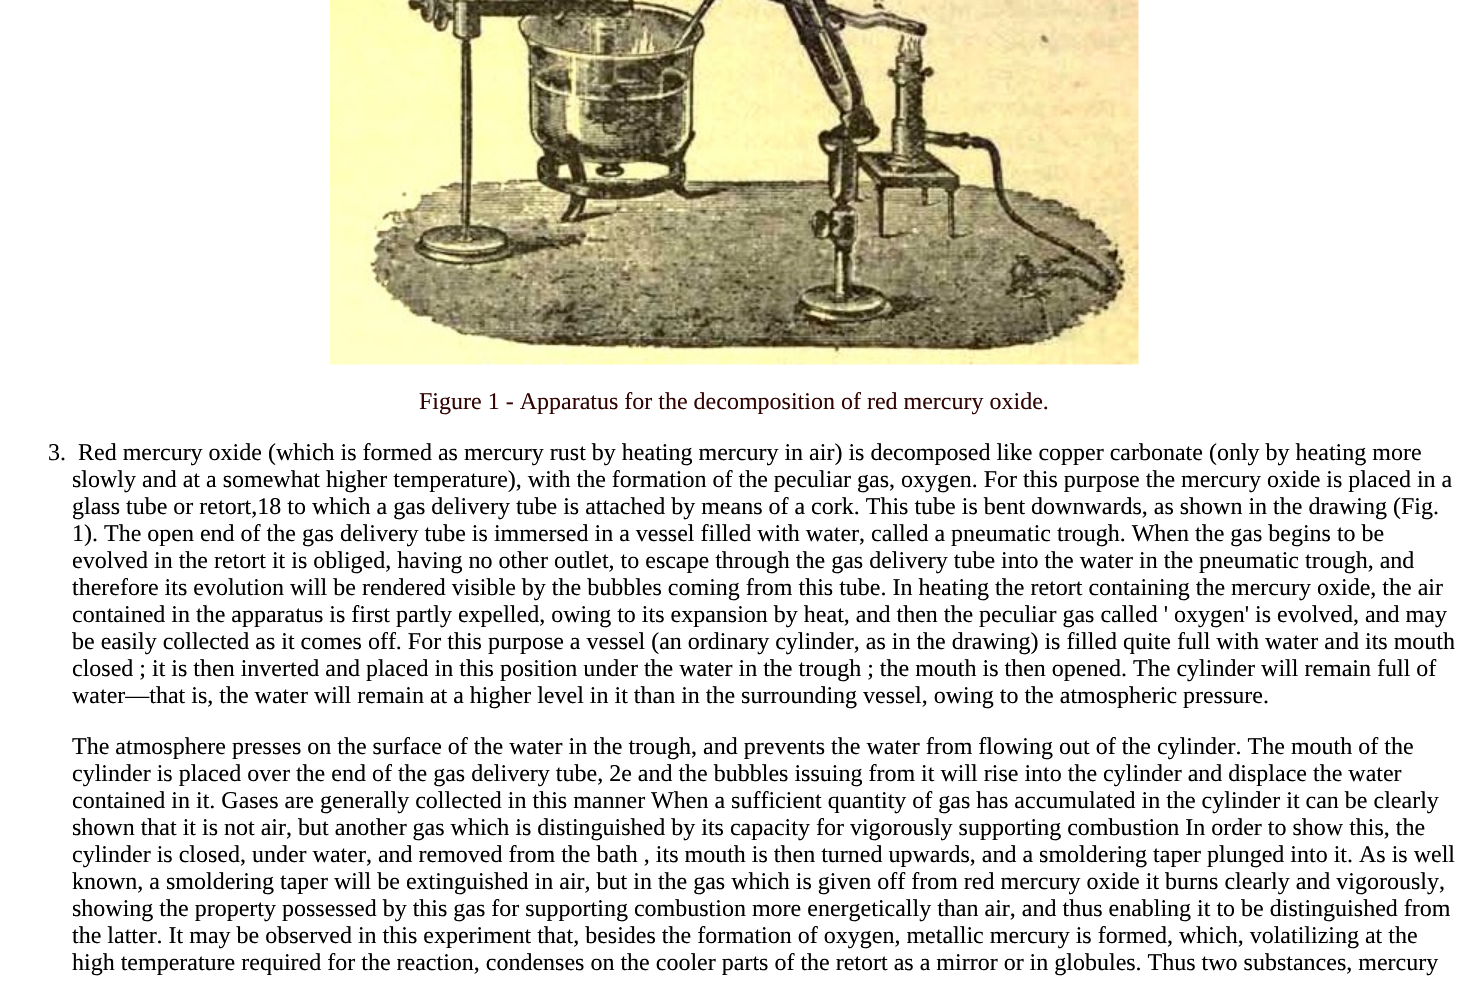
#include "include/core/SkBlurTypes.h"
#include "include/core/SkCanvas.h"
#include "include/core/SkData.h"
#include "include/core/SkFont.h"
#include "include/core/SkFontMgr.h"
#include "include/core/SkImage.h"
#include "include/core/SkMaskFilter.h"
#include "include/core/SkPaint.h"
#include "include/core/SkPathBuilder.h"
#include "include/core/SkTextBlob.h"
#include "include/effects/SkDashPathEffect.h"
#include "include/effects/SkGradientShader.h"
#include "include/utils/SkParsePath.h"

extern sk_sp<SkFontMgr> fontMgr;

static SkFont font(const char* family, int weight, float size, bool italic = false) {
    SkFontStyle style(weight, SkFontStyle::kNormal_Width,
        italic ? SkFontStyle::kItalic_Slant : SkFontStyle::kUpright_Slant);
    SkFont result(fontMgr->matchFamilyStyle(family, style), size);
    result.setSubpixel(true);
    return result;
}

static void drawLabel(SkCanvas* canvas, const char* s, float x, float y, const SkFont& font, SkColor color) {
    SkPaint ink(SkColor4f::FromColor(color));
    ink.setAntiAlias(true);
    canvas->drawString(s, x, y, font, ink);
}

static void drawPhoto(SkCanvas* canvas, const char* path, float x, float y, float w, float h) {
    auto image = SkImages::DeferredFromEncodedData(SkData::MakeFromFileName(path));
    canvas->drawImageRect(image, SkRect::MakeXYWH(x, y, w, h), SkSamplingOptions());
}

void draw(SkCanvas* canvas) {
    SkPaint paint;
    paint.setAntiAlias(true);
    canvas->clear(0xFFFFFFFF);
    drawPhoto(canvas, "assets/img1.png", 330, 0, 809, 365);
    SkFont font1 = font("Liberation Serif", 400, 24);
    drawLabel(canvas, "Figure 1 - Apparatus for the decomposition of red mercury oxide.", 419, 409, font1, 0xFF310303);
    drawLabel(canvas, "3.", 48, 460, font1, 0xFF000000);
    drawLabel(canvas, "Red mercury oxide (which is formed as mercury rust by heating mercury in air) is decomposed like copper carbonate (only by heating more", 78, 460, font1, 0xFF000000);
    drawLabel(canvas, "slowly and at a somewhat higher temperature), with the formation of the peculiar gas, oxygen. For this purpose the mercury oxide is placed in a", 72, 487, font1, 0xFF000000);
    drawLabel(canvas, "glass tube or retort,18 to which a gas delivery tube is attached by means of a cork. This tube is bent downwards, as shown in the drawing (Fig.", 72, 514, font1, 0xFF000000);
    drawLabel(canvas, "1). The open end of the gas delivery tube is immersed in a vessel filled with water, called a pneumatic trough. When the gas begins to be", 72, 541, font1, 0xFF000000);
    drawLabel(canvas, "evolved in the retort it is obliged, having no other outlet, to escape through the gas delivery tube into the water in the pneumatic trough, and", 72, 568, font1, 0xFF000000);
    drawLabel(canvas, "therefore its evolution will be rendered visible by the bubbles coming from this tube. In heating the retort containing the mercury oxide, the air", 72, 595, font1, 0xFF000000);
    drawLabel(canvas, "contained in the apparatus is first partly expelled, owing to its expansion by heat, and then the peculiar gas called ' oxygen' is evolved, and may", 72, 622, font1, 0xFF000000);
    drawLabel(canvas, "be easily collected as it comes off. For this purpose a vessel (an ordinary cylinder, as in the drawing) is filled quite full with water and its mouth", 72, 649, font1, 0xFF000000);
    drawLabel(canvas, "closed ; it is then inverted and placed in this position under the water in the trough ; the mouth is then opened. The cylinder will remain full of", 72, 676, font1, 0xFF000000);
    drawLabel(canvas, "water—that is, the water will remain at a higher level in it than in the surrounding vessel, owing to the atmospheric pressure.", 72, 703, font1, 0xFF000000);
    drawLabel(canvas, "The atmosphere presses on the surface of the water in the trough, and prevents the water from flowing out of the cylinder. The mouth of the", 72, 754, font1, 0xFF000000);
    drawLabel(canvas, "cylinder is placed over the end of the gas delivery tube, 2e and the bubbles issuing from it will rise into the cylinder and displace the water", 72, 781, font1, 0xFF000000);
    drawLabel(canvas, "contained in it. Gases are generally collected in this manner When a sufficient quantity of gas has accumulated in the cylinder it can be clearly", 72, 808, font1, 0xFF000000);
    drawLabel(canvas, "shown that it is not air, but another gas which is distinguished by its capacity for vigorously supporting combustion In order to show this, the", 72, 835, font1, 0xFF000000);
    drawLabel(canvas, "cylinder is closed, under water, and removed from the bath , its mouth is then turned upwards, and a smoldering taper plunged into it. As is well", 72, 862, font1, 0xFF000000);
    drawLabel(canvas, "known, a smoldering taper will be extinguished in air, but in the gas which is given off from red mercury oxide it burns clearly and vigorously,", 72, 889, font1, 0xFF000000);
    drawLabel(canvas, "showing the property possessed by this gas for supporting combustion more energetically than air, and thus enabling it to be distinguished from", 72, 916, font1, 0xFF000000);
    drawLabel(canvas, "the latter. It may be observed in this experiment that, besides the formation of oxygen, metallic mercury is formed, which, volatilizing at the", 72, 943, font1, 0xFF000000);
    drawLabel(canvas, "high temperature required for the reaction, condenses on the cooler parts of the retort as a mirror or in globules. Thus two substances, mercury", 72, 970, font1, 0xFF000000);
}
